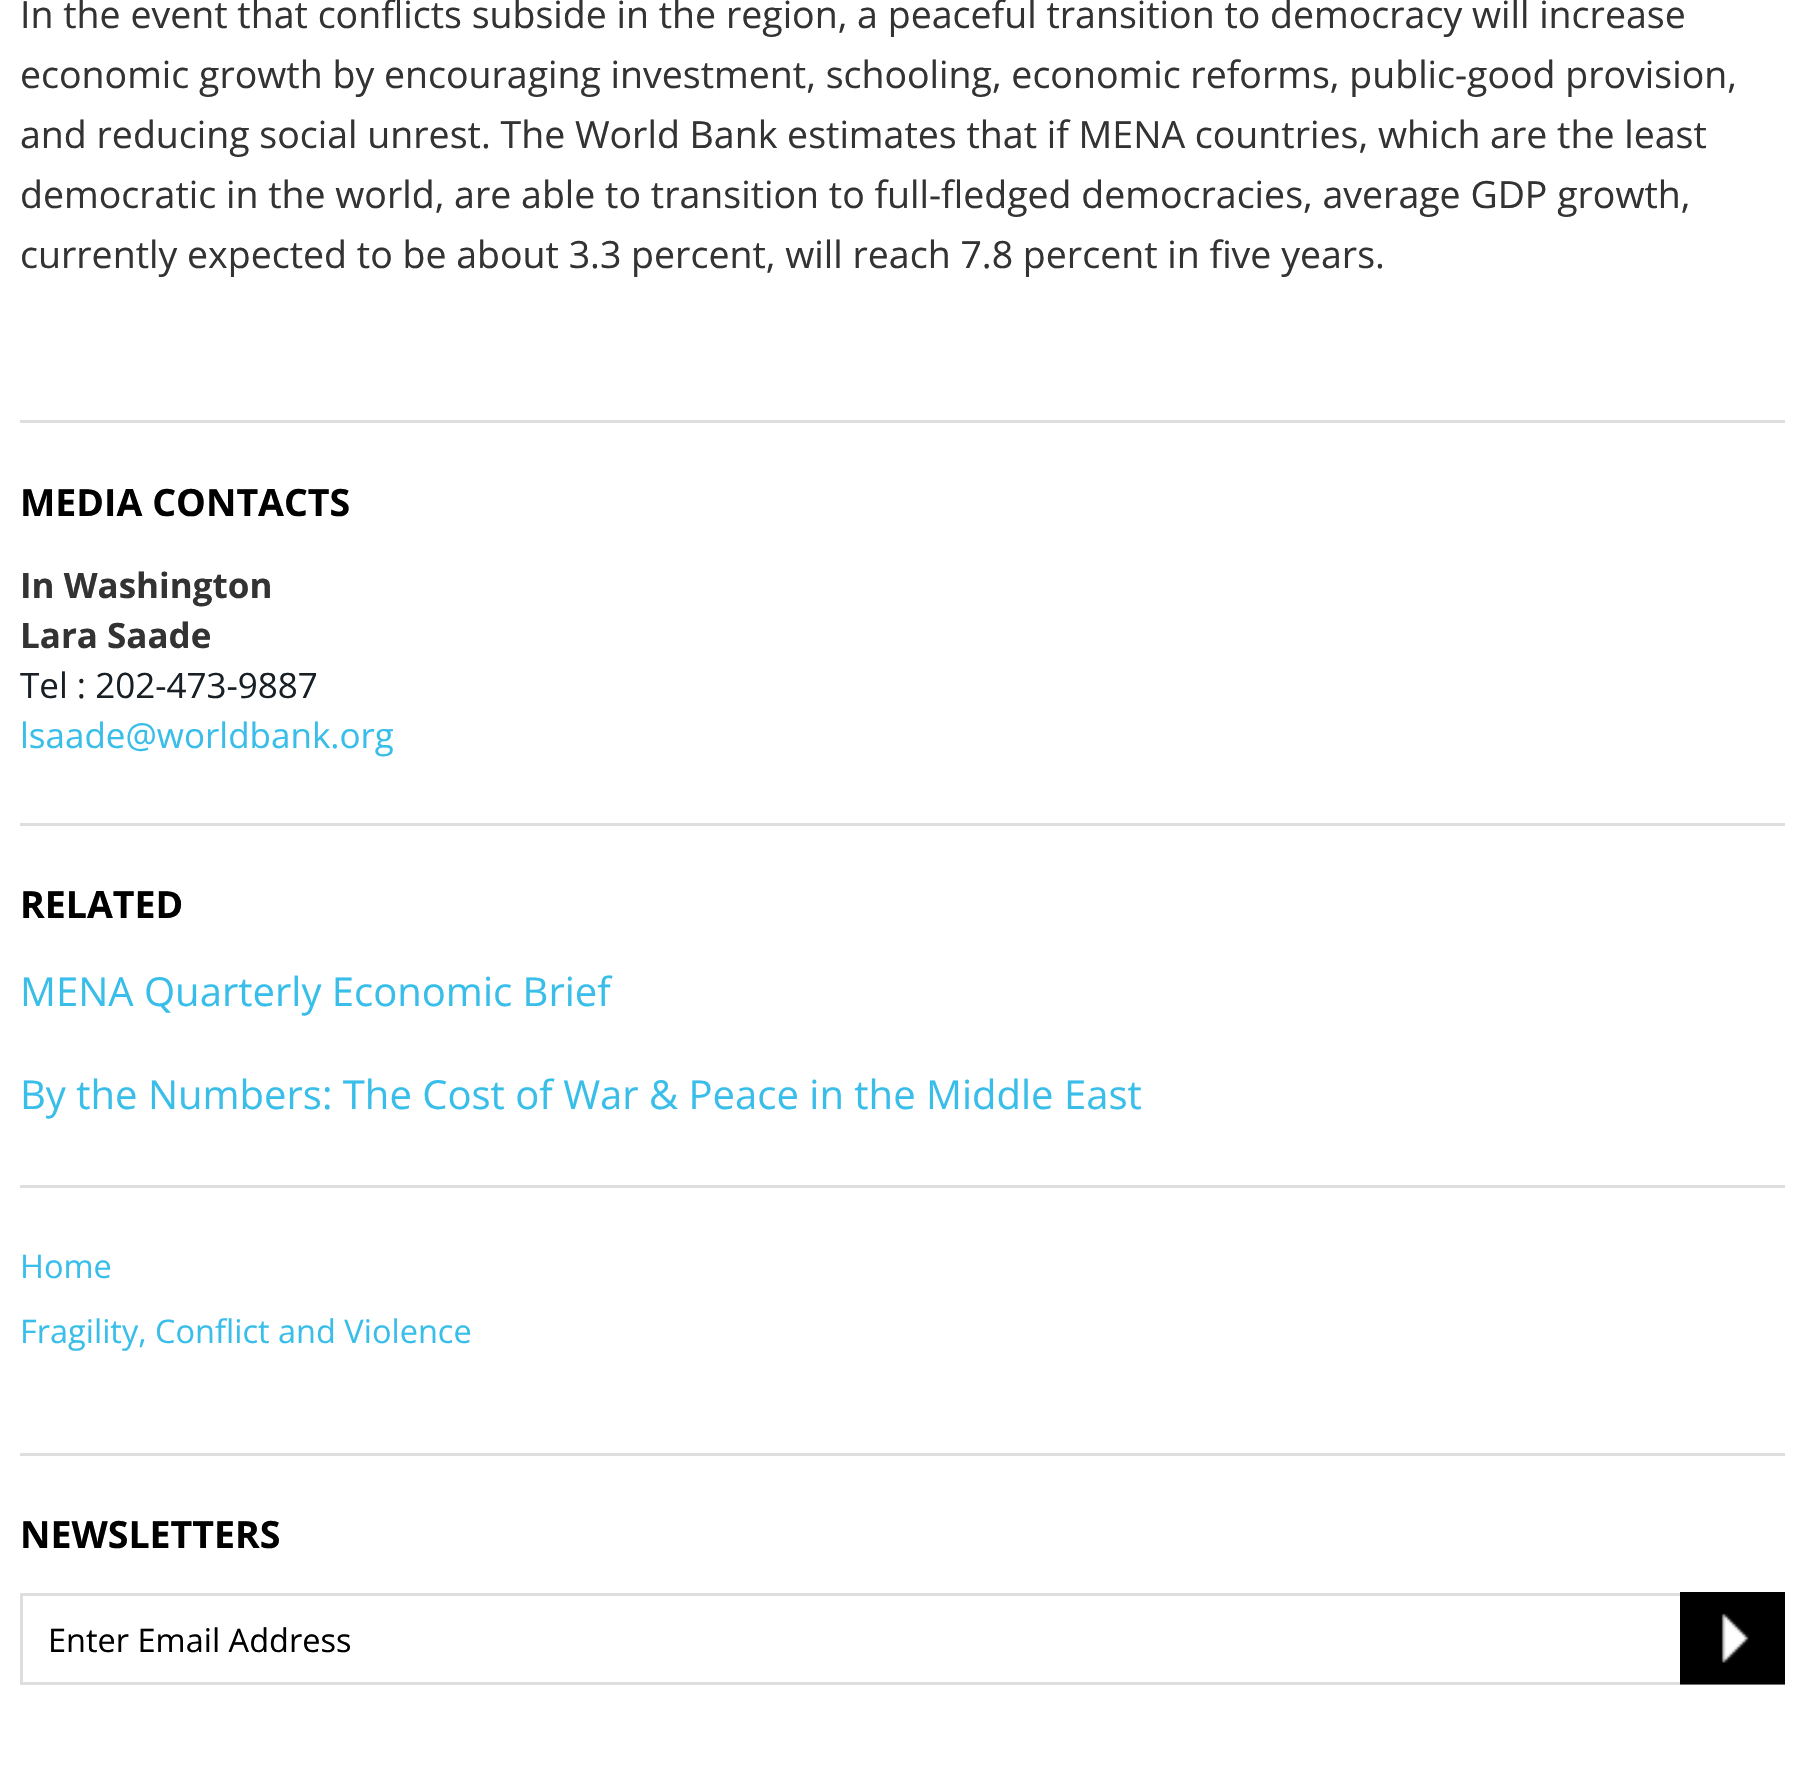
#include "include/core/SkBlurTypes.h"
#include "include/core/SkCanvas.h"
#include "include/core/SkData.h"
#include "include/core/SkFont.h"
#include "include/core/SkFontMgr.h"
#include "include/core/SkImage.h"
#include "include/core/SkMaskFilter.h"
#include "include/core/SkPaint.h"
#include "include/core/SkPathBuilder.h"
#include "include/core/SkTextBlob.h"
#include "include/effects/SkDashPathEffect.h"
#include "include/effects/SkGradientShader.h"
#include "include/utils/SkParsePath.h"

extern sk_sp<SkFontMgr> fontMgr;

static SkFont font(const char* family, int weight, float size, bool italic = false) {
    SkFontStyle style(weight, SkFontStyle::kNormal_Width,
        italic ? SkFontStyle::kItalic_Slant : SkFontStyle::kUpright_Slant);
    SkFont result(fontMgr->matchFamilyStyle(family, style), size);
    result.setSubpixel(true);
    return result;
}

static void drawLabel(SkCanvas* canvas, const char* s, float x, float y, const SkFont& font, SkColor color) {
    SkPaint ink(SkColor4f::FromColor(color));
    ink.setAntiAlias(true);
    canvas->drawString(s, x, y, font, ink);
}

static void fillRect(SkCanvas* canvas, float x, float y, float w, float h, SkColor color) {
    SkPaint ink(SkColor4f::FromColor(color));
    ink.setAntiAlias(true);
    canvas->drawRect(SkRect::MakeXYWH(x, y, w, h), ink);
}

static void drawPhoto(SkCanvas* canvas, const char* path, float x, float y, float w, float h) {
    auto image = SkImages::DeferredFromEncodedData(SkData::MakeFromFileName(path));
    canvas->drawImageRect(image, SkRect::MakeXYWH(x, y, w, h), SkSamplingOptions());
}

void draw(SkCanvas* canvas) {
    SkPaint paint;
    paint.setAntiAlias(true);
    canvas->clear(0xFFFFFFFF);
    SkFont font1 = font("Open Sans", 400, 37.5f);
    drawLabel(canvas, "In the event that conflicts subside in the region, a peaceful transition to democracy will increase", 20, 28, font1, 0xFF333333);
    drawLabel(canvas, "economic growth by encouraging investment, schooling, economic reforms, public-good provision,", 20, 88, font1, 0xFF333333);
    drawLabel(canvas, "and reducing social unrest. The World Bank estimates that if MENA countries, which are the least", 20, 148, font1, 0xFF333333);
    drawLabel(canvas, "democratic in the world, are able to transition to full-fledged democracies, average GDP growth,", 20, 208, font1, 0xFF333333);
    drawLabel(canvas, "currently expected to be about 3.3 percent, will reach 7.8 percent in five years.", 20, 268, font1, 0xFF333333);
    fillRect(canvas, 20, 420, 1765, 3, 0xFFDEDEDE);
    SkFont font2 = font("Open Sans", 700, 37.5f);
    drawLabel(canvas, "MEDIA CONTACTS", 20, 516, font2, 0xFF000000);
    SkFont font3 = font("Open Sans", 700, 35);
    drawLabel(canvas, "In Washington", 20, 598, font3, 0xFF333333);
    drawLabel(canvas, "Lara Saade", 20, 648, font3, 0xFF333333);
    SkFont font4 = font("Open Sans", 400, 35);
    drawLabel(canvas, "Tel : 202-473-9887", 20, 698, font4, 0xFF181F25);
    drawLabel(canvas, "lsaade@worldbank.org", 20, 748, font4, 0xFF39BEEA);
    fillRect(canvas, 20, 823, 1765, 3, 0xFFDEDEDE);
    drawLabel(canvas, "RELATED", 20, 918, font2, 0xFF000000);
    SkFont font5 = font("Open Sans", 400, 40);
    drawLabel(canvas, "MENA Quarterly Economic Brief", 20, 1006, font5, 0xFF39BEEA);
    drawLabel(canvas, "By the Numbers: The Cost of War & Peace in the Middle East", 20, 1109, font5, 0xFF39BEEA);
    fillRect(canvas, 20, 1185, 1765, 3, 0xFFDEDEDE);
    SkFont font6 = font("Open Sans", 400, 32.5f);
    drawLabel(canvas, "Home", 20, 1278, font6, 0xFF39BEEA);
    drawLabel(canvas, "Fragility, Conflict and Violence", 20, 1343, font6, 0xFF39BEEA);
    fillRect(canvas, 20, 1453, 1765, 3, 0xFFDEDEDE);
    drawLabel(canvas, "NEWSLETTERS", 20, 1548, font2, 0xFF000000);
    paint.setStroke(true);
    paint.setStrokeWidth(3);
    paint.setColor(0xFFDEDEDE);
    canvas->drawRect(SkRect::MakeXYWH(21.5f, 1594.5f, 1762, 89), paint);
    drawLabel(canvas, "Enter Email Address", 48, 1652, font6, 0xFF000000);
    drawPhoto(canvas, "assets/img1.png", 1680, 1592, 105, 93);
}
